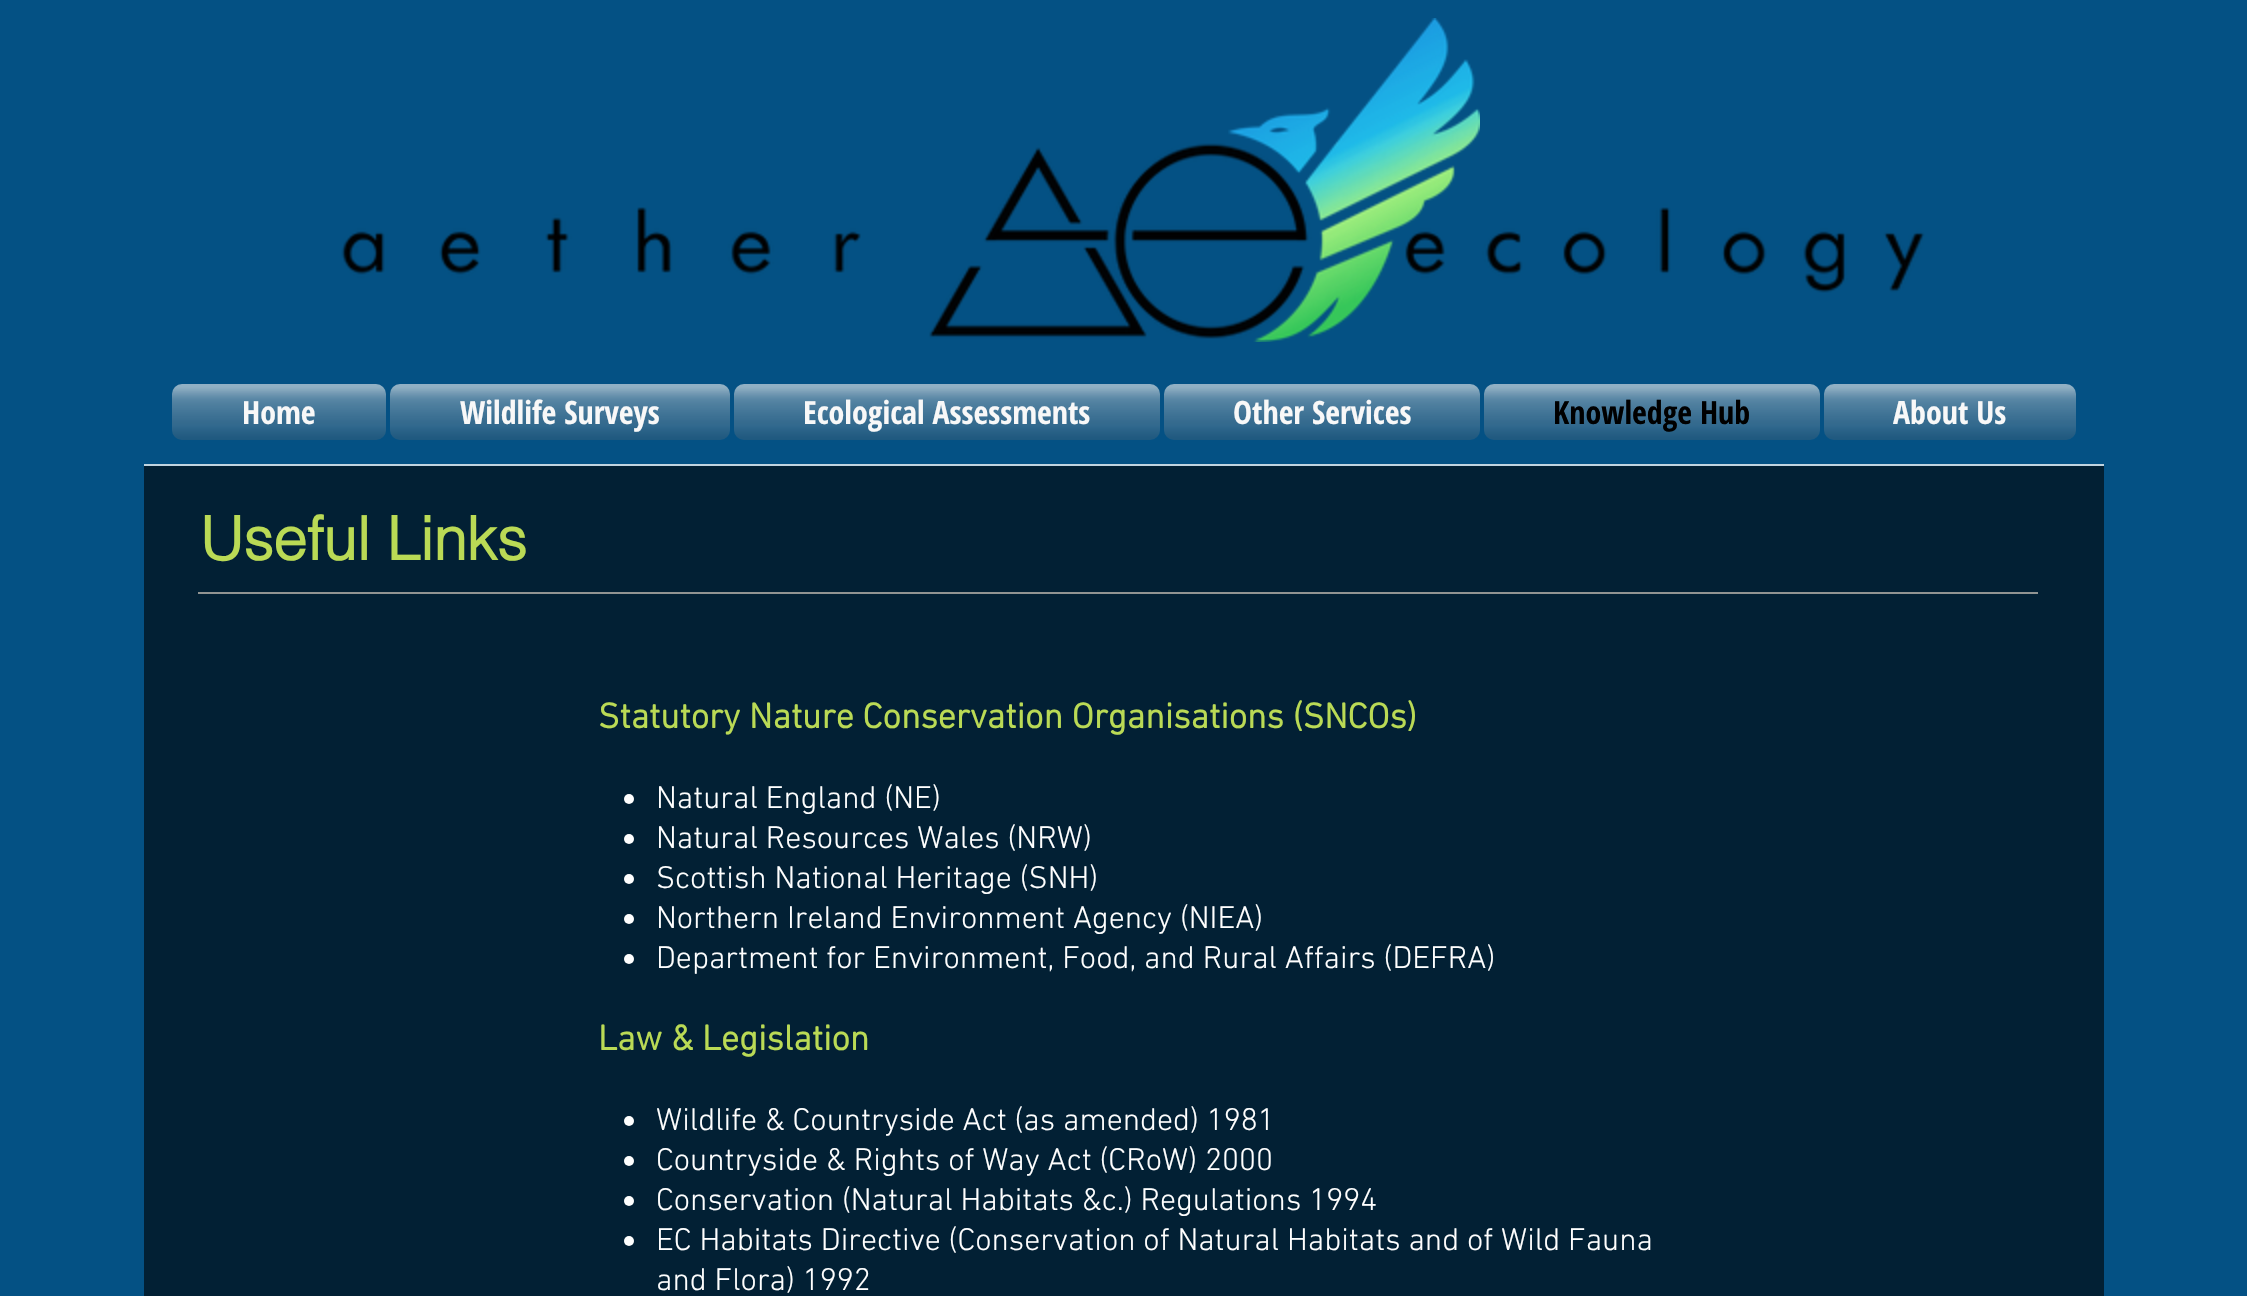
#include "include/core/SkBlurTypes.h"
#include "include/core/SkCanvas.h"
#include "include/core/SkData.h"
#include "include/core/SkFont.h"
#include "include/core/SkFontMgr.h"
#include "include/core/SkImage.h"
#include "include/core/SkMaskFilter.h"
#include "include/core/SkPaint.h"
#include "include/core/SkPathBuilder.h"
#include "include/core/SkTextBlob.h"
#include "include/effects/SkDashPathEffect.h"
#include "include/effects/SkGradientShader.h"
#include "include/utils/SkParsePath.h"

extern sk_sp<SkFontMgr> fontMgr;

static SkFont font(const char* family, int weight, float size, bool italic = false) {
    SkFontStyle style(weight, SkFontStyle::kNormal_Width,
        italic ? SkFontStyle::kItalic_Slant : SkFontStyle::kUpright_Slant);
    SkFont result(fontMgr->matchFamilyStyle(family, style), size);
    result.setSubpixel(true);
    return result;
}

static void drawLabel(SkCanvas* canvas, const char* s, float x, float y, const SkFont& font, SkColor color) {
    SkPaint ink(SkColor4f::FromColor(color));
    ink.setAntiAlias(true);
    canvas->drawString(s, x, y, font, ink);
}

static void fillRect(SkCanvas* canvas, float x, float y, float w, float h, SkColor color) {
    SkPaint ink(SkColor4f::FromColor(color));
    ink.setAntiAlias(true);
    canvas->drawRect(SkRect::MakeXYWH(x, y, w, h), ink);
}

static void drawPhoto(SkCanvas* canvas, const char* path, float x, float y, float w, float h) {
    auto image = SkImages::DeferredFromEncodedData(SkData::MakeFromFileName(path));
    canvas->drawImageRect(image, SkRect::MakeXYWH(x, y, w, h), SkSamplingOptions());
}

void draw(SkCanvas* canvas) {
    SkPaint paint;
    paint.setAntiAlias(true);
    canvas->clear(0xFF045184);
    drawPhoto(canvas, "assets/img2.png", 341, 143, 1584, 196);
    drawPhoto(canvas, "assets/img1.png", 1228, 18, 252, 324);
    drawPhoto(canvas, "assets/img3.png", 172, 384, 214, 56);
    drawPhoto(canvas, "assets/img4.png", 172, 384, 214, 56);
    SkFont font1 = font("Open Sans Condensed", 700, 32);
    drawLabel(canvas, "Home", 242, 424, font1, 0xFFF8F8F8);
    drawPhoto(canvas, "assets/img5.png", 390, 384, 340, 56);
    drawPhoto(canvas, "assets/img6.png", 390, 384, 340, 56);
    drawLabel(canvas, "Wildlife Surveys", 460, 424, font1, 0xFFF8F8F8);
    drawPhoto(canvas, "assets/img7.png", 734, 384, 426, 56);
    drawPhoto(canvas, "assets/img8.png", 734, 384, 426, 56);
    drawLabel(canvas, "Ecological Assessments", 803, 424, font1, 0xFFF8F8F8);
    drawPhoto(canvas, "assets/img9.png", 1164, 384, 316, 56);
    drawPhoto(canvas, "assets/img10.png", 1164, 384, 316, 56);
    drawLabel(canvas, "Other Services", 1233, 424, font1, 0xFFF8F8F8);
    drawPhoto(canvas, "assets/img11.png", 1484, 384, 336, 56);
    drawPhoto(canvas, "assets/img12.png", 1484, 384, 336, 56);
    drawLabel(canvas, "Knowledge Hub", 1553, 424, font1, 0xFF000000);
    drawPhoto(canvas, "assets/img13.png", 1824, 384, 252, 56);
    drawPhoto(canvas, "assets/img14.png", 1824, 384, 252, 56);
    drawLabel(canvas, "About Us", 1893, 424, font1, 0xFFF8F8F8);
    fillRect(canvas, 144, 464, 1960, 2, 0xFFC0D4E0);
    fillRect(canvas, 144, 466, 1960, 830, 0xFF022034);
    SkFont font2 = font("helvetica", 700, 60);
    drawLabel(canvas, "Useful Links", 200, 560, font2, 0xFFBADA55);
    fillRect(canvas, 198, 592, 1840, 2, 0xFF919492);
    SkFont font3 = font("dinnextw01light", 700, 36);
    drawLabel(canvas, "Statutory Nature Conservation Organisations (SNCOs)", 598, 728, font3, 0xFFBADA55);
    paint.setColor(0xFFFFFFFF);
    canvas->drawCircle(629, 799, 5, paint);
    SkFont font4 = font("dinnextw01light", 300, 32);
    drawLabel(canvas, "Natural England (NE)", 656, 808, font4, 0xFFFFFFFF);
    canvas->drawCircle(629, 839, 5, paint);
    drawLabel(canvas, "Natural Resources Wales (NRW)", 656, 848, font4, 0xFFFFFFFF);
    canvas->drawCircle(629, 879, 5, paint);
    drawLabel(canvas, "Scottish National Heritage (SNH)", 656, 888, font4, 0xFFFFFFFF);
    canvas->drawCircle(629, 919, 5, paint);
    drawLabel(canvas, "Northern Ireland Environment Agency (NIEA)", 656, 928, font4, 0xFFFFFFFF);
    canvas->drawCircle(629, 959, 5, paint);
    drawLabel(canvas, "Department for Environment, Food, and Rural Affairs (DEFRA)", 656, 968, font4, 0xFFFFFFFF);
    drawLabel(canvas, "Law & Legislation", 598, 1050, font3, 0xFFBADA55);
    canvas->drawCircle(629, 1121, 5, paint);
    drawLabel(canvas, "Wildlife & Countryside Act (as amended) 1981", 656, 1130, font4, 0xFFFFFFFF);
    canvas->drawCircle(629, 1161, 5, paint);
    drawLabel(canvas, "Countryside & Rights of Way Act (CRoW) 2000", 656, 1170, font4, 0xFFFFFFFF);
    canvas->drawCircle(629, 1201, 5, paint);
    drawLabel(canvas, "Conservation (Natural Habitats &c.) Regulations 1994", 656, 1210, font4, 0xFFFFFFFF);
    canvas->drawCircle(629, 1241, 5, paint);
    drawLabel(canvas, "EC Habitats Directive (Conservation of Natural Habitats and of Wild Fauna", 656, 1250, font4, 0xFFFFFFFF);
    drawLabel(canvas, "and Flora) 1992", 656, 1290, font4, 0xFFFFFFFF);
}
